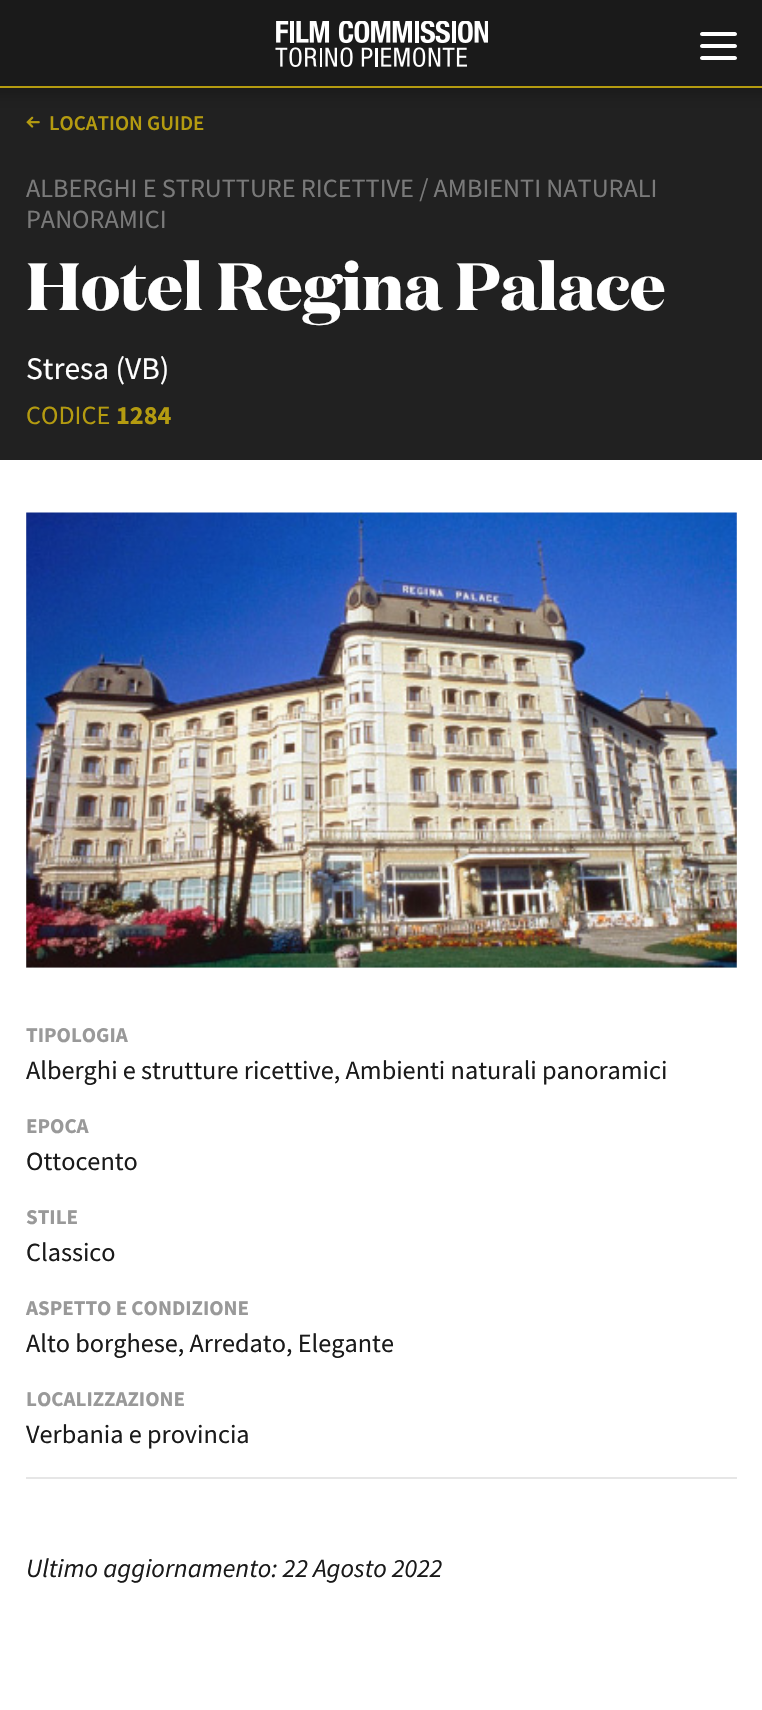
#include "include/core/SkBlurTypes.h"
#include "include/core/SkCanvas.h"
#include "include/core/SkData.h"
#include "include/core/SkFont.h"
#include "include/core/SkFontMgr.h"
#include "include/core/SkImage.h"
#include "include/core/SkMaskFilter.h"
#include "include/core/SkPaint.h"
#include "include/core/SkPathBuilder.h"
#include "include/core/SkTextBlob.h"
#include "include/effects/SkDashPathEffect.h"
#include "include/effects/SkGradientShader.h"
#include "include/utils/SkParsePath.h"

extern sk_sp<SkFontMgr> fontMgr;

static SkFont font(const char* family, int weight, float size, bool italic = false) {
    SkFontStyle style(weight, SkFontStyle::kNormal_Width,
        italic ? SkFontStyle::kItalic_Slant : SkFontStyle::kUpright_Slant);
    SkFont result(fontMgr->matchFamilyStyle(family, style), size);
    result.setSubpixel(true);
    return result;
}

static void drawLabel(SkCanvas* canvas, const char* s, float x, float y, const SkFont& font, SkColor color) {
    SkPaint ink(SkColor4f::FromColor(color));
    ink.setAntiAlias(true);
    canvas->drawString(s, x, y, font, ink);
}

static void fillRect(SkCanvas* canvas, float x, float y, float w, float h, SkColor color) {
    SkPaint ink(SkColor4f::FromColor(color));
    ink.setAntiAlias(true);
    canvas->drawRect(SkRect::MakeXYWH(x, y, w, h), ink);
}

static void drawPhoto(SkCanvas* canvas, const char* path, float x, float y, float w, float h) {
    auto image = SkImages::DeferredFromEncodedData(SkData::MakeFromFileName(path));
    canvas->drawImageRect(image, SkRect::MakeXYWH(x, y, w, h), SkSamplingOptions());
}

static SkPath parsePath(const char* data, bool evenOdd = false) {
    SkPath result = *SkParsePath::FromSVGString(data);
    if (evenOdd) result.setFillType(SkPathFillType::kEvenOdd);
    return result;
}

void draw(SkCanvas* canvas) {
    SkPaint paint;
    paint.setAntiAlias(true);
    canvas->clear(0xFFFFFFFF);
    fillRect(canvas, 0, 88, 762, 372, 0xFF212121);
    drawPhoto(canvas, "assets/img2.png", 26, 116, 14, 12);
    paint.setColor(0x66000000);
    paint.setMaskFilter(SkMaskFilter::MakeBlur(kNormal_SkBlurStyle, 10.5f));
    canvas->drawRect(SkRect::MakeXYWH(-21, -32, 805, 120), paint);
    paint.setMaskFilter(nullptr);
    fillRect(canvas, 0, 0, 762, 86, 0xFF1A1A1A);
    drawPhoto(canvas, "assets/img1.png", 275, 21, 213, 46);
    paint.setColor(0xFFFFFFFF);
    canvas->drawPath(parsePath("M702 32H719V36H702C701 36 700 35 700 34C700 33 701 32 702 32Z"), paint);
    canvas->drawPath(parsePath("M718 32H735C736 32 737 33 737 34C737 35 736 36 735 36H718Z"), paint);
    canvas->drawPath(parsePath("M702 44H719V48H702C701 48 700 47 700 46C700 45 701 44 702 44Z"), paint);
    canvas->drawPath(parsePath("M718 44H735C736 44 737 45 737 46C737 47 736 48 735 48H718Z"), paint);
    canvas->drawPath(parsePath("M702 56H719V60H702C701 60 700 59 700 58C700 57 701 56 702 56Z"), paint);
    canvas->drawPath(parsePath("M718 56H735C736 56 737 57 737 58C737 59 736 60 735 60H718Z"), paint);
    fillRect(canvas, 0, 86, 762, 2, 0xFFB49B10);
    SkFont font1 = font("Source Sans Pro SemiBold", 600, 21);
    drawLabel(canvas, "LOCATION GUIDE", 49, 130, font1, 0xFFB49B10);
    SkFont font2 = font("Source Sans Pro", 400, 26.25f);
    drawLabel(canvas, "ALBERGHI E STRUTTURE RICETTIVE / AMBIENTI NATURALI", 26, 197, font2, 0xFF7A7A7A);
    drawLabel(canvas, "PANORAMICI", 26, 228, font2, 0xFF7A7A7A);
    SkFont font3 = font("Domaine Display", 700, 66.5f);
    drawLabel(canvas, "Hotel Regina Palace", 26, 310, font3, 0xFFFFFFFF);
    SkFont font4 = font("Source Sans Pro", 400, 31.5f);
    drawLabel(canvas, "Stresa (VB)", 26, 379, font4, 0xFFFFFFFF);
    drawLabel(canvas, "CODICE", 26, 424, font2, 0xFFB49B10);
    SkFont font5 = font("Source Sans Pro", 700, 26.25f);
    drawLabel(canvas, "1284", 116, 424, font5, 0xFFB49B10);
    fillRect(canvas, 26, 513, 711, 455, 0xFFD9D9D9);
    drawPhoto(canvas, "assets/img3.png", 26, 512, 711, 456);
    SkFont font6 = font("Source Sans Pro", 700, 21);
    drawLabel(canvas, "TIPOLOGIA", 26, 1042, font6, 0xFF999999);
    drawLabel(canvas, "Alberghi e strutture ricettive, Ambienti naturali panoramici", 26, 1079, font2, 0xFF1A1A1A);
    drawLabel(canvas, "EPOCA", 26, 1133, font6, 0xFF999999);
    drawLabel(canvas, "Ottocento", 26, 1170, font2, 0xFF1A1A1A);
    drawLabel(canvas, "STILE", 26, 1224, font6, 0xFF999999);
    drawLabel(canvas, "Classico", 26, 1261, font2, 0xFF1A1A1A);
    drawLabel(canvas, "ASPETTO E CONDIZIONE", 26, 1315, font6, 0xFF999999);
    drawLabel(canvas, "Alto borghese, Arredato, Elegante", 26, 1352, font2, 0xFF1A1A1A);
    drawLabel(canvas, "LOCALIZZAZIONE", 26, 1406, font6, 0xFF999999);
    drawLabel(canvas, "Verbania e provincia", 26, 1443, font2, 0xFF1A1A1A);
    fillRect(canvas, 26, 1477, 711, 2, 0xFFE6E6E6);
    SkFont font7 = font("Source Sans Pro", 400, 26.25f, true);
    drawLabel(canvas, "Ultimo aggiornamento: 22 Agosto 2022", 26, 1577, font7, 0xFF1A1A1A);
}
